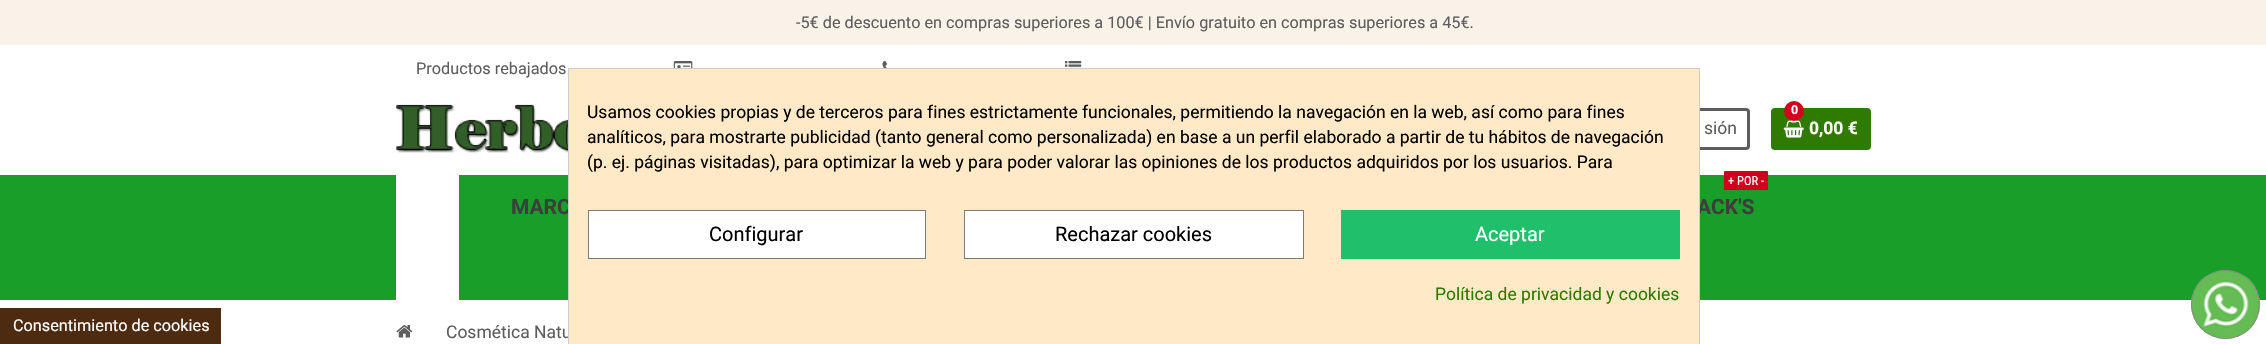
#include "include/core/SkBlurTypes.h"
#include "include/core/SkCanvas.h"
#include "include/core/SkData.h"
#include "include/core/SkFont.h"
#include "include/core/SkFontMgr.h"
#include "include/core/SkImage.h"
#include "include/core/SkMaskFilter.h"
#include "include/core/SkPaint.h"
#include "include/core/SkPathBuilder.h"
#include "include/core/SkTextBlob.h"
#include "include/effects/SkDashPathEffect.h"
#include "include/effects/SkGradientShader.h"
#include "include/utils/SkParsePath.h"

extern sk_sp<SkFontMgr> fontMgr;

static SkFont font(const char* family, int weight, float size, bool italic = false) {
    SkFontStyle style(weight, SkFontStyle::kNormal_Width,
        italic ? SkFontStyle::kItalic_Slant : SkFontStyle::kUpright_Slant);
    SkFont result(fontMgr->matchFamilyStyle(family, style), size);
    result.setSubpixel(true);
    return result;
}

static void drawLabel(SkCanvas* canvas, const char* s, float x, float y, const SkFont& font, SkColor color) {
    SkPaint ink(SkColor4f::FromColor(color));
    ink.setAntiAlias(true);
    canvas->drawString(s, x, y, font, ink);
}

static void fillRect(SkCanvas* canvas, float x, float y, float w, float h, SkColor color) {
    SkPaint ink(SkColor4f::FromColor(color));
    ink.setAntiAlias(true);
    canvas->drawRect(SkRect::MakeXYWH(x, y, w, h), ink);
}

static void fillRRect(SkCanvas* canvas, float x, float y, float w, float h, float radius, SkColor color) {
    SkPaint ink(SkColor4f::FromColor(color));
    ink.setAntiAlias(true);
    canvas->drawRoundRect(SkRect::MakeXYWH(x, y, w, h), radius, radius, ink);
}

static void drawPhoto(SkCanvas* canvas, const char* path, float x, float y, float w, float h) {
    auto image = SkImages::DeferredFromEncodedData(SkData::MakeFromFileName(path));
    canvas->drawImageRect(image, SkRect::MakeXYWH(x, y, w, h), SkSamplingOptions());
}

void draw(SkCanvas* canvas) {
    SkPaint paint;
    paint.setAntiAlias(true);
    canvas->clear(0xFFFFFFFF);
    fillRect(canvas, 0, 0, 2266, 45, 0xFFF9F2E8);
    SkFont font1 = font("Roboto", 400, 16.25f);
    drawLabel(canvas, "-5€ de descuento en compras superiores a 100€ | Envío gratuito en compras superiores a 45€.", 796, 28, font1, 0xFF5D5D5D);
    drawLabel(canvas, "Productos rebajados", 416, 74, font1, 0xFF5D5D5D);
    drawPhoto(canvas, "assets/img1.png", 673, 61, 20, 7);
    drawPhoto(canvas, "assets/img2.png", 882, 61, 6, 7);
    drawPhoto(canvas, "assets/img3.png", 1065, 61, 17, 7);
    drawPhoto(canvas, "assets/img4.png", 396, 104, 172, 49);
    paint.setStroke(true);
    paint.setStrokeWidth(3);
    paint.setColor(0xFF5D5D5D);
    canvas->drawRoundRect(SkRect::MakeXYWH(1600.5f, 109.5f, 148, 39), 2.5f, 2.5f, paint);
    SkFont font2 = font("Roboto", 400, 17.5f);
    drawLabel(canvas, "sión", 1704, 134, font2, 0xFF5D5D5D);
    fillRRect(canvas, 1771, 108, 100, 42, 4, 0xFF2F7A00);
    drawPhoto(canvas, "assets/img5.png", 1783, 120, 21, 18);
    paint.setStroke(false);
    paint.setColor(0xFFD1001C);
    canvas->drawCircle(1794, 111, 10, paint);
    SkFont font3 = font("Roboto", 700, 12.5f);
    drawLabel(canvas, "0", 1791, 114, font3, 0xFFFFFFFF);
    SkFont font4 = font("Roboto", 700, 17.5f);
    drawLabel(canvas, "0,00 €", 1809, 134, font4, 0xFFFFFFFF);
    fillRect(canvas, 0, 175, 2266, 125, 0xFF199E29);
    fillRect(canvas, 396, 175, 63, 125, 0xFFFFFFFF);
    SkFont font5 = font("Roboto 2", 700, 21);
    drawLabel(canvas, "MARC", 511, 214, font5, 0xFF3D3D3D);
    fillRRect(canvas, 1724, 171, 44, 19, 1, 0xFFD1001C);
    SkFont font6 = font("Roboto Condensed", 400, 12.5f);
    drawLabel(canvas, "+ POR -", 1728, 185, font6, 0xFFFFFFFF);
    drawLabel(canvas, "ACK'S", 1697, 214, font5, 0xFF3D3D3D);
    drawPhoto(canvas, "assets/img6.png", 396, 325, 17, 13);
    drawLabel(canvas, "Cosmética Natu", 446, 338, font2, 0xFF5D5D5D);
    paint.setColor(0xFF65BC54);
    canvas->drawCircle(2225.5f, 304.5f, 34.5f, paint);
    drawPhoto(canvas, "assets/img7.png", 2197, 276, 58, 57);
    paint.setStroke(true);
    paint.setStrokeWidth(1);
    paint.setColor(0xFF888888);
    canvas->drawCircle(2225.5f, 304.5f, 34, paint);
    paint.setStroke(false);
    paint.setColor(0xFFFFE9C6);
    canvas->drawRect(SkRect::MakeXYWH(568.5f, 68.5f, 1131, 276), paint);
    paint.setStroke(true);
    paint.setColor(0xFFCCCCCC);
    canvas->drawRect(SkRect::MakeXYWH(568.5f, 68.5f, 1131, 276), paint);
    canvas->save();
    canvas->clipRect(SkRect::MakeXYWH(588, 99, 1092, 86));
    drawLabel(canvas, "Usamos cookies propias y de terceros para fines estrictamente funcionales, permitiendo la navegación en la web, así como para fines", 587, 118, font2, 0xFF000000);
    drawLabel(canvas, "analíticos, para mostrarte publicidad (tanto general como personalizada) en base a un perfil elaborado a partir de tu hábitos de navegación", 587, 143, font2, 0xFF000000);
    drawLabel(canvas, "(p. ej. páginas visitadas), para optimizar la web y para poder valorar las opiniones de los productos adquiridos por los usuarios. Para", 587, 168, font2, 0xFF000000);
    canvas->restore();
    paint.setStroke(false);
    paint.setColor(0xFFFFFFFF);
    canvas->drawRect(SkRect::MakeXYWH(588.5f, 210.5f, 337, 48), paint);
    paint.setStroke(true);
    paint.setColor(0xFF7A7A7A);
    canvas->drawRect(SkRect::MakeXYWH(588.5f, 210.5f, 337, 48), paint);
    SkFont font7 = font("Roboto", 400, 20);
    drawLabel(canvas, "Configurar", 709, 241, font7, 0xFF000000);
    paint.setStroke(false);
    paint.setColor(0xFFFFFFFF);
    canvas->drawRect(SkRect::MakeXYWH(964.5f, 210.5f, 339, 48), paint);
    paint.setStroke(true);
    paint.setColor(0xFF7A7A7A);
    canvas->drawRect(SkRect::MakeXYWH(964.5f, 210.5f, 339, 48), paint);
    drawLabel(canvas, "Rechazar cookies", 1055, 241, font7, 0xFF000000);
    fillRect(canvas, 1341, 210, 339, 49, 0xFF20BF6B);
    drawLabel(canvas, "Aceptar", 1475, 241, font7, 0xFFFFFFFF);
    drawLabel(canvas, "Política de privacidad y cookies", 1435, 300, font2, 0xFF2F7A00);
    fillRect(canvas, 0, 308, 221, 36, 0xFF4C2B11);
    drawLabel(canvas, "Consentimiento de cookies", 13, 331, font1, 0xFFFFFFFF);
}
